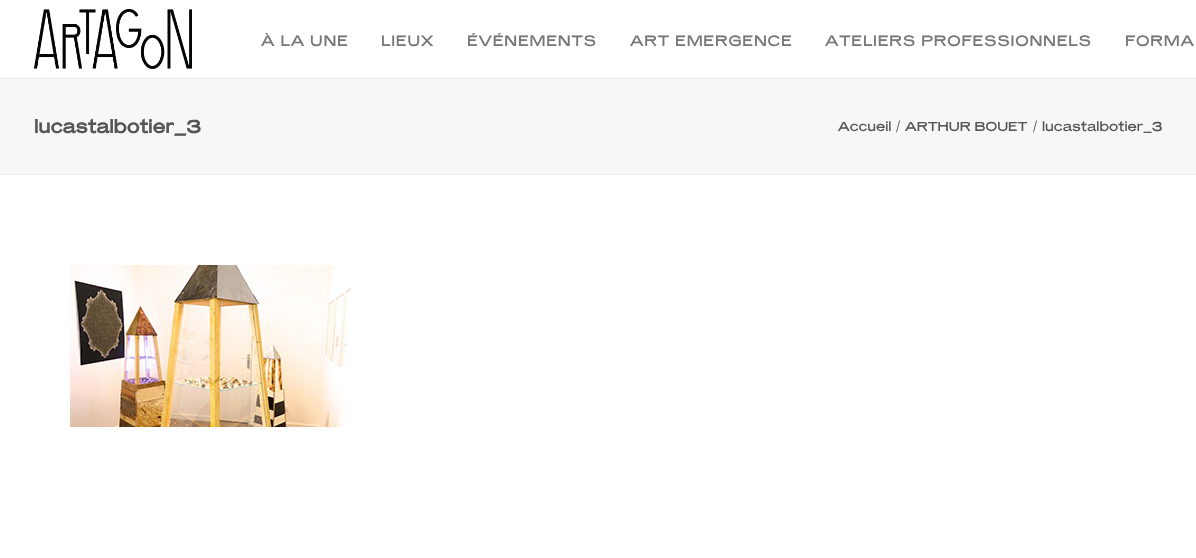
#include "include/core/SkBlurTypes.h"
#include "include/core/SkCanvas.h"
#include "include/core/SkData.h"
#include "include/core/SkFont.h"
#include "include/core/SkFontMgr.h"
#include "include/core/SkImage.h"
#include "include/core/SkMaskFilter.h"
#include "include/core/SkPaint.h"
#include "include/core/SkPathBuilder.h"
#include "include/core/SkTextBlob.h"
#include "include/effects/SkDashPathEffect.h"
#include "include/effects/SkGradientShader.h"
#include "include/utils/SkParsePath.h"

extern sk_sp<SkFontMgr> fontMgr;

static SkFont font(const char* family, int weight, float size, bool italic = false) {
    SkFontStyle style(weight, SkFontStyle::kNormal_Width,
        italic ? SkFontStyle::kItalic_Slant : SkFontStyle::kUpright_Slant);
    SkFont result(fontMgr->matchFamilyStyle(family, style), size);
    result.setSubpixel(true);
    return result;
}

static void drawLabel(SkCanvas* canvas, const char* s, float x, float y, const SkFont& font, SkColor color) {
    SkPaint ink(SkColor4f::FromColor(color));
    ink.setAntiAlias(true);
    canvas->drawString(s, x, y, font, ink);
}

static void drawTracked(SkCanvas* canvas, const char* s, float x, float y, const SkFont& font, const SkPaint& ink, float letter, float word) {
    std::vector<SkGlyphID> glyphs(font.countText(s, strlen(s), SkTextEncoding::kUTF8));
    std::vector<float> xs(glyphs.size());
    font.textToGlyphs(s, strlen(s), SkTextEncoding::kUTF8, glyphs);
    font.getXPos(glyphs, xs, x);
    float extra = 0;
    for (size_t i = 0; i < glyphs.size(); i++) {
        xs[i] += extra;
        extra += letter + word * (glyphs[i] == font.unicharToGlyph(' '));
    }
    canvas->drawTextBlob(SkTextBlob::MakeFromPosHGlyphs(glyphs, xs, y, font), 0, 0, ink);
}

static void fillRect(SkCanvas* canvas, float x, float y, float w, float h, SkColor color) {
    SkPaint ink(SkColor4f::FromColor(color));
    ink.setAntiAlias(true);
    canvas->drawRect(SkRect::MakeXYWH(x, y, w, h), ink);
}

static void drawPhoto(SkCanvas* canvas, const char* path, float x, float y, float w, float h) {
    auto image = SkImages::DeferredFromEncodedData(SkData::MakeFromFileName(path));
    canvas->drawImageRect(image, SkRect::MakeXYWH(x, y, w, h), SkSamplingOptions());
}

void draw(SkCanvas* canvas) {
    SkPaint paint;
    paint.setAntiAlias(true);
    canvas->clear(0xFFFFFFFF);
    drawPhoto(canvas, "assets/img1.png", 34, 9, 158, 60);
    SkFont font1 = font("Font", 400, 15);
    paint.setColor(0xFF777777);
    drawTracked(canvas, "À LA UNE", 261, 46, font1, paint, 0.75f, 0);
    drawTracked(canvas, "LIEUX", 381, 46, font1, paint, 0.75f, 0);
    drawTracked(canvas, "ÉVÉNEMENTS", 467, 46, font1, paint, 0.75f, 0);
    drawTracked(canvas, "ART EMERGENCE", 630, 46, font1, paint, 0.75f, 0);
    drawTracked(canvas, "ATELIERS PROFESSIONNELS", 825, 46, font1, paint, 0.75f, 0);
    drawTracked(canvas, "FORMA", 1125, 46, font1, paint, 0.75f, 0);
    fillRect(canvas, 0, 79, 1196, 95, 0xFFF7F7F7);
    fillRect(canvas, 0, 78, 1196, 1, 0xFFEAEAEA);
    fillRect(canvas, 0, 174, 1196, 1, 0xFFEAEAEA);
    SkFont font2 = font("Font", 700, 18);
    drawLabel(canvas, "lucastalbotier_3", 34, 133, font2, 0xFF565656);
    SkFont font3 = font("Font", 400, 13);
    drawLabel(canvas, "Accueil", 838, 131, font3, 0xFF565656);
    drawLabel(canvas, "/", 896, 131, font3, 0xFF565656);
    drawLabel(canvas, "ARTHUR BOUET", 905, 131, font3, 0xFF565656);
    drawLabel(canvas, "/", 1033, 131, font3, 0xFF565656);
    drawLabel(canvas, "lucastalbotier_3", 1042, 131, font3, 0xFF565656);
    drawPhoto(canvas, "assets/img2.png", 70, 265, 282, 162);
}
